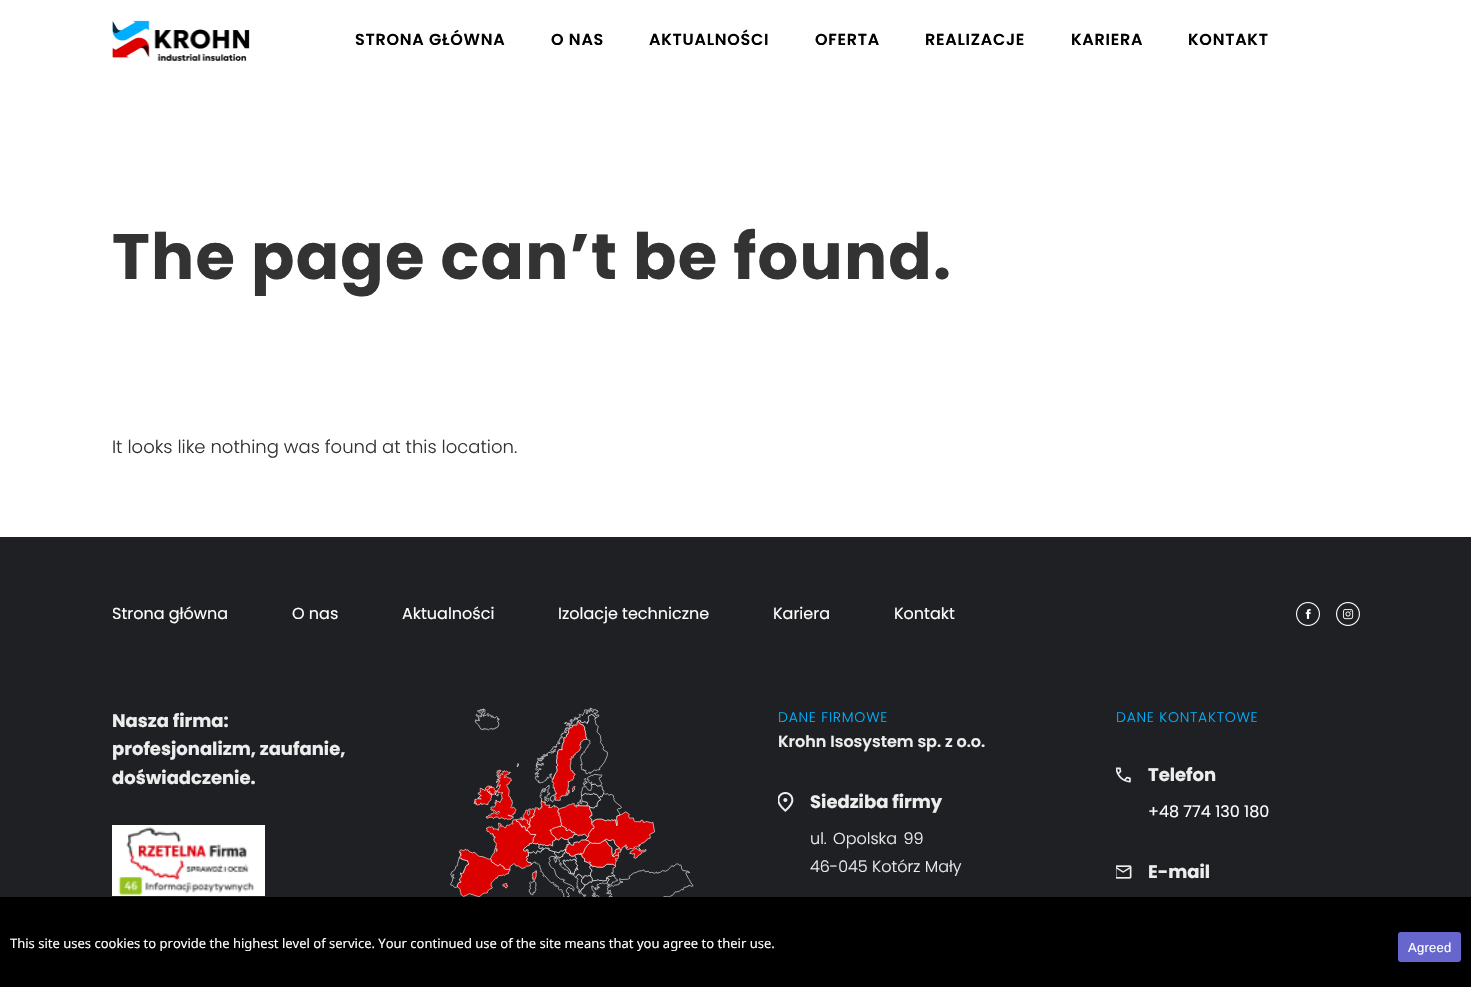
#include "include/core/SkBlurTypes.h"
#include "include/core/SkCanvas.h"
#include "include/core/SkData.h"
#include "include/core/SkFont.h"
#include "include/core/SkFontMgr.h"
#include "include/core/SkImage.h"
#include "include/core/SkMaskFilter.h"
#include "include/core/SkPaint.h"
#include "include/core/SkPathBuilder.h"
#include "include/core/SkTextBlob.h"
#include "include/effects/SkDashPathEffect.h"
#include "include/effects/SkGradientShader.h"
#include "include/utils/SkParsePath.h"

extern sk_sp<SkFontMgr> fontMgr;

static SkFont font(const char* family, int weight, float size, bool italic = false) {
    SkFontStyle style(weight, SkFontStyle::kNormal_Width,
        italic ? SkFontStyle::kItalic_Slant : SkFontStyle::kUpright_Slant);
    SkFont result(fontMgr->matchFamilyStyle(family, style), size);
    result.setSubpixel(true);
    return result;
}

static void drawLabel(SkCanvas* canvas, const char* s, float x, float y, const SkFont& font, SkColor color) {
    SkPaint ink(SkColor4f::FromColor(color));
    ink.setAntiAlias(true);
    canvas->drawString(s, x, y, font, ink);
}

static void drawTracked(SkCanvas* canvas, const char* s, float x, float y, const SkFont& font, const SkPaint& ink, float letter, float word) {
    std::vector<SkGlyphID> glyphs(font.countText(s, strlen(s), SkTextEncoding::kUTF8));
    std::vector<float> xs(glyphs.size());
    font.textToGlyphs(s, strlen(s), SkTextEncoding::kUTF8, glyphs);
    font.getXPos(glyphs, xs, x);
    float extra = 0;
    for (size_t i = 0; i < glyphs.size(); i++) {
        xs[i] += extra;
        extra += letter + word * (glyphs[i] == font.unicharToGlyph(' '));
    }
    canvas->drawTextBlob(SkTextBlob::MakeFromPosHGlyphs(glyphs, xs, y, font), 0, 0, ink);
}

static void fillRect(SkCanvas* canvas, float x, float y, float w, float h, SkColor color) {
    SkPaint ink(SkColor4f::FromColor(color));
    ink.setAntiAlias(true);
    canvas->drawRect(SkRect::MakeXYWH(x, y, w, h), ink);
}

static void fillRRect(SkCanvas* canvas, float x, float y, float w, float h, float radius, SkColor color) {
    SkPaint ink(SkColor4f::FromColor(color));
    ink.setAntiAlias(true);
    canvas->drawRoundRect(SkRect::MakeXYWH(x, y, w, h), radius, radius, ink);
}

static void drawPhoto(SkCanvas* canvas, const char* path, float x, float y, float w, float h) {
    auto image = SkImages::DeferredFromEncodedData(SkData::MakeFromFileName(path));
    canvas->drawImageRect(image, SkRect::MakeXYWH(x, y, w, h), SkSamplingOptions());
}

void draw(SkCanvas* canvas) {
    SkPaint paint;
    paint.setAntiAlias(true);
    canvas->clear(0xFFFFFFFF);
    drawPhoto(canvas, "assets/img1.png", 112, 20, 138, 41);
    SkFont font1 = font("Poppins", 600, 16);
    paint.setColor(0xFF000000);
    drawTracked(canvas, "STRONA GŁÓWNA", 355, 45, font1, paint, 0.75f, 0);
    drawTracked(canvas, "O NAS", 551, 45, font1, paint, 0.75f, 0);
    drawTracked(canvas, "AKTUALNOŚCI", 649, 45, font1, paint, 0.75f, 0);
    drawTracked(canvas, "OFERTA", 815, 45, font1, paint, 0.75f, 0);
    drawTracked(canvas, "REALIZACJE", 925, 45, font1, paint, 0.75f, 0);
    drawTracked(canvas, "KARIERA", 1071, 45, font1, paint, 0.75f, 0);
    drawTracked(canvas, "KONTAKT", 1188, 45, font1, paint, 0.75f, 0);
    SkFont font2 = font("Poppins", 700, 64);
    paint.setColor(0xFF333333);
    drawTracked(canvas, "The page can’t be found.", 112, 279, font2, paint, 1.25f, 0);
    SkFont font3 = font("Poppins", 300, 18);
    drawLabel(canvas, "It looks like nothing was found at this location.", 112, 453, font3, 0xFF333333);
    fillRect(canvas, 0, 537, 1471, 360, 0xFF1F2024);
    SkFont font4 = font("Poppins", 400, 16);
    drawLabel(canvas, "Strona główna", 112, 619, font4, 0xFFFFFFFF);
    drawLabel(canvas, "O nas", 292, 619, font4, 0xFFFFFFFF);
    drawLabel(canvas, "Aktualności", 402, 619, font4, 0xFFFFFFFF);
    drawLabel(canvas, "Izolacje techniczne", 558, 619, font4, 0xFFFFFFFF);
    drawLabel(canvas, "Kariera", 773, 619, font4, 0xFFFFFFFF);
    drawLabel(canvas, "Kontakt", 894, 619, font4, 0xFFFFFFFF);
    drawPhoto(canvas, "assets/img2.png", 1296, 602, 24, 24);
    drawPhoto(canvas, "assets/img3.png", 1336, 602, 24, 24);
    SkFont font5 = font("Poppins", 700, 18);
    drawLabel(canvas, "Nasza firma:", 112, 727, font5, 0xFFEDEDED);
    drawLabel(canvas, "profesjonalizm, zaufanie,", 112, 755, font5, 0xFFEDEDED);
    drawLabel(canvas, "doświadczenie.", 112, 784, font5, 0xFFEDEDED);
    drawPhoto(canvas, "assets/img4.png", 112, 825, 153, 71);
    drawPhoto(canvas, "assets/img5.png", 450, 707, 244, 190);
    SkFont font6 = font("Poppins", 300, 14);
    paint.setColor(0xFF00AFFF);
    drawTracked(canvas, "DANE FIRMOWE", 778, 722, font6, paint, 0.75f, 0);
    drawLabel(canvas, "Krohn Isosystem sp. z o.o.", 778, 747, font1, 0xFFEDEDED);
    drawPhoto(canvas, "assets/img6.png", 778, 792, 16, 20);
    drawLabel(canvas, "Siedziba firmy", 810, 808, font5, 0xFFEDEDED);
    SkFont font7 = font("Poppins", 300, 16);
    paint.setColor(0xFFEDEDED);
    drawTracked(canvas, "ul. Opolska 99", 810, 844, font7, paint, 0, 2);
    drawLabel(canvas, "46-045 Kotórz Mały", 810, 872, font7, 0xFFEDEDED);
    paint.setColor(0xFF00AFFF);
    drawTracked(canvas, "DANE KONTAKTOWE", 1116, 722, font6, paint, 0.75f, 0);
    drawPhoto(canvas, "assets/img7.png", 1116, 767, 15, 16);
    drawLabel(canvas, "Telefon", 1148, 781, font5, 0xFFEDEDED);
    drawLabel(canvas, "+48 774 130 180", 1148, 817, font4, 0xFFFFFFFF);
    drawPhoto(canvas, "assets/img8.png", 1116, 865, 16, 14);
    drawLabel(canvas, "E-mail", 1148, 878, font5, 0xFFEDEDED);
    fillRect(canvas, 0, 897, 1471, 90, 0xFF000000);
    SkFont font8 = font("Noto Sans", 400, 13);
    drawLabel(canvas, "This site uses cookies to provide the highest level of service. Your continued use of the site means that you agree to their use.", 10, 948, font8, 0xFFFFFFFF);
    fillRRect(canvas, 1398, 932, 63, 30, 3, 0xFF6666CC);
    SkFont font9 = font("Liberation Sans", 400, 13);
    paint.setColor(0xFFFFFFFF);
    drawTracked(canvas, "Agreed", 1408, 952, font9, paint, 0.25f, 0);
}
